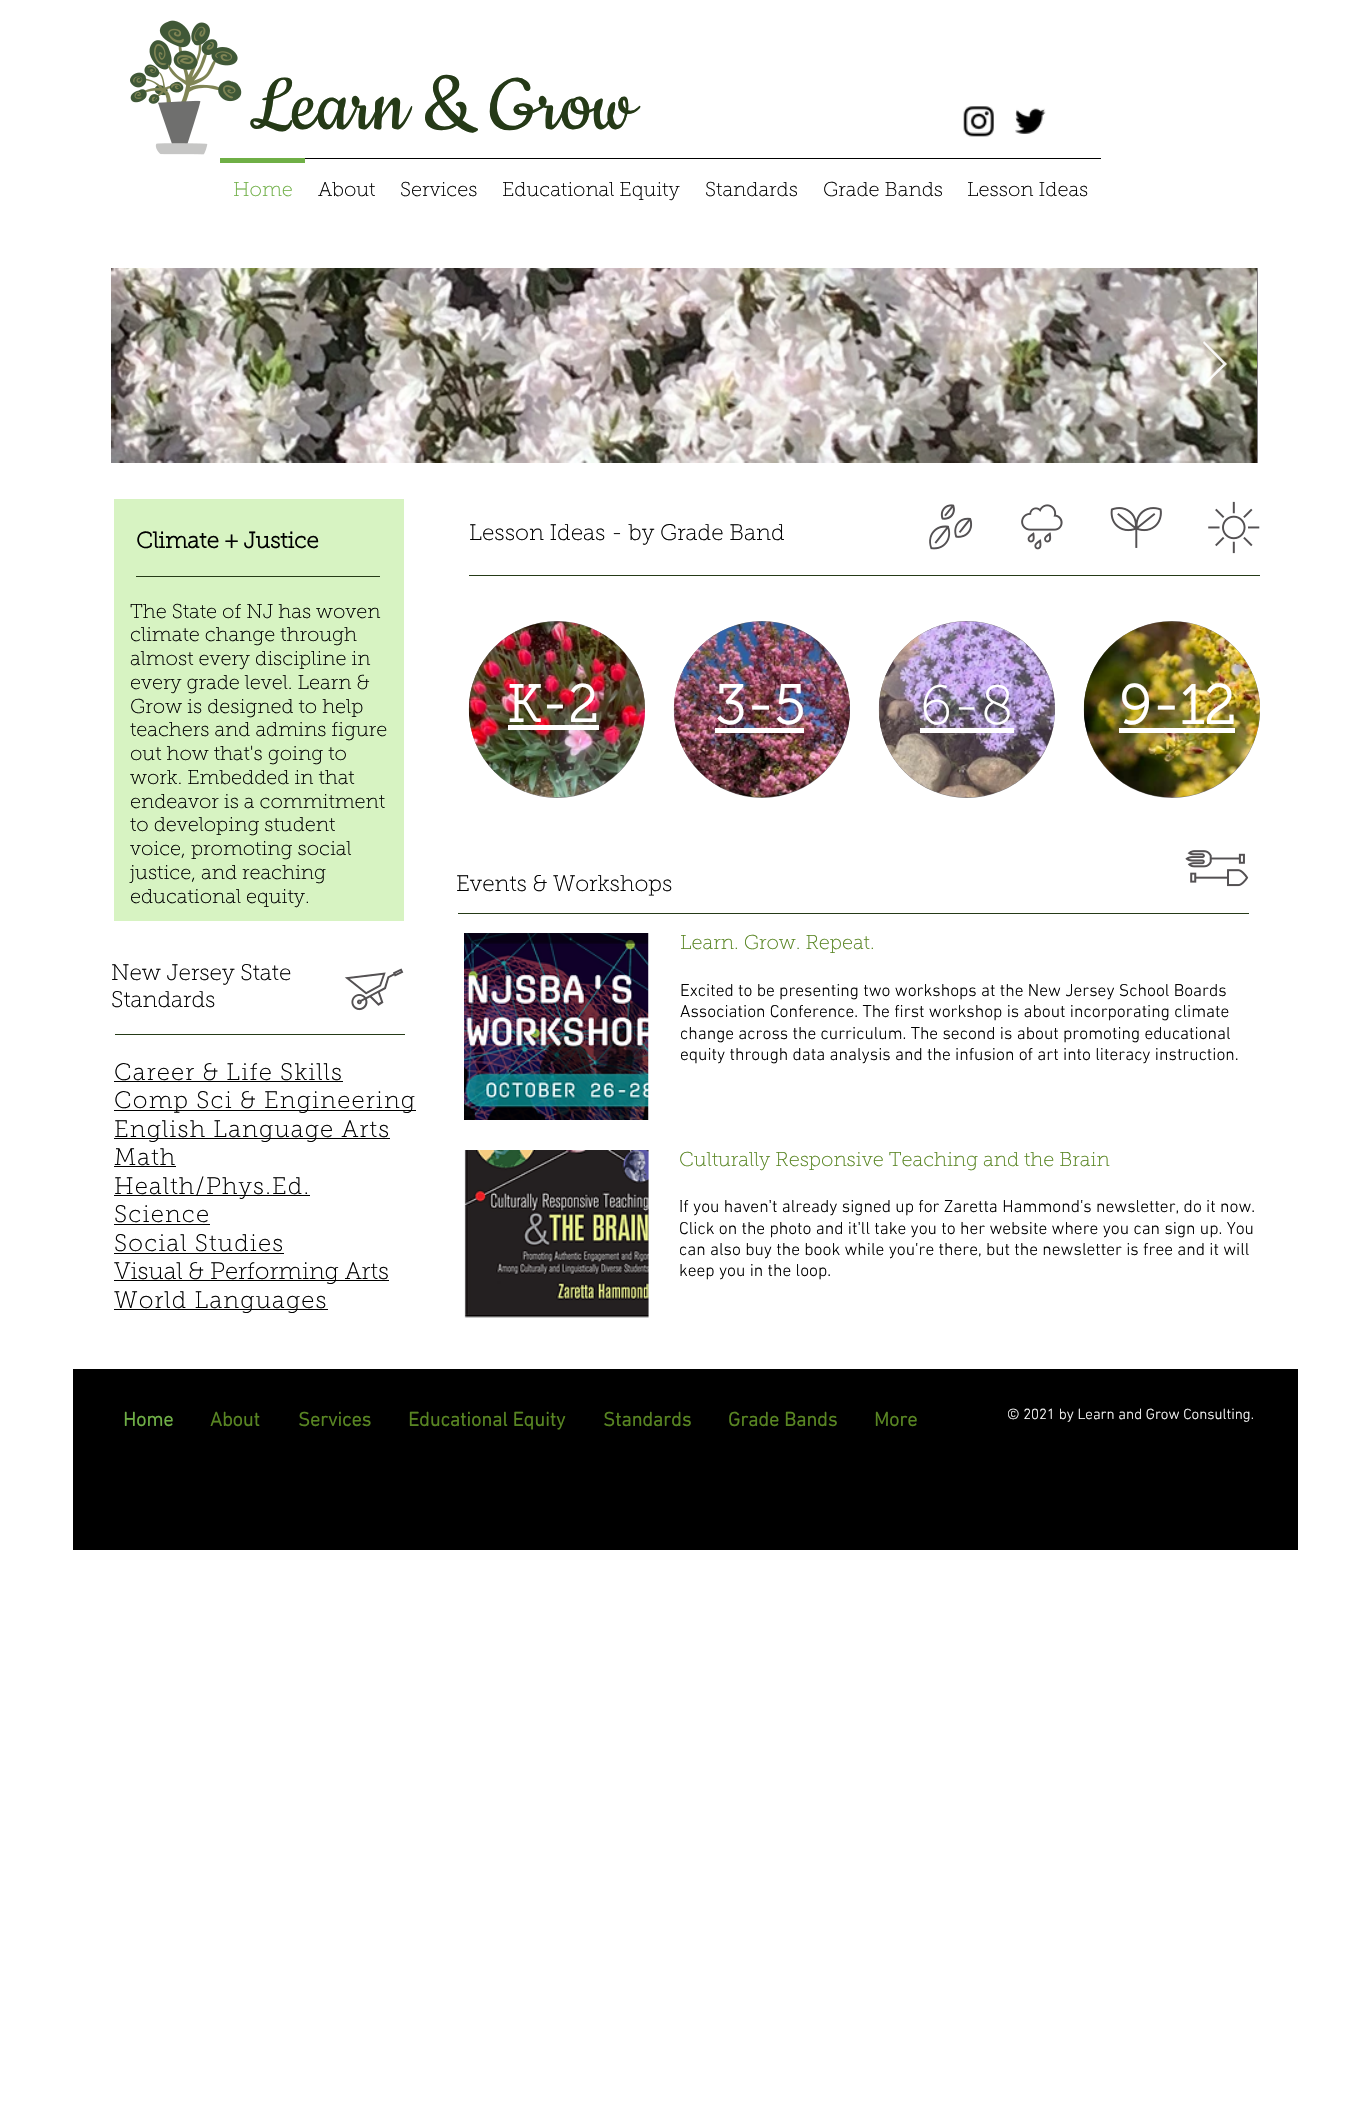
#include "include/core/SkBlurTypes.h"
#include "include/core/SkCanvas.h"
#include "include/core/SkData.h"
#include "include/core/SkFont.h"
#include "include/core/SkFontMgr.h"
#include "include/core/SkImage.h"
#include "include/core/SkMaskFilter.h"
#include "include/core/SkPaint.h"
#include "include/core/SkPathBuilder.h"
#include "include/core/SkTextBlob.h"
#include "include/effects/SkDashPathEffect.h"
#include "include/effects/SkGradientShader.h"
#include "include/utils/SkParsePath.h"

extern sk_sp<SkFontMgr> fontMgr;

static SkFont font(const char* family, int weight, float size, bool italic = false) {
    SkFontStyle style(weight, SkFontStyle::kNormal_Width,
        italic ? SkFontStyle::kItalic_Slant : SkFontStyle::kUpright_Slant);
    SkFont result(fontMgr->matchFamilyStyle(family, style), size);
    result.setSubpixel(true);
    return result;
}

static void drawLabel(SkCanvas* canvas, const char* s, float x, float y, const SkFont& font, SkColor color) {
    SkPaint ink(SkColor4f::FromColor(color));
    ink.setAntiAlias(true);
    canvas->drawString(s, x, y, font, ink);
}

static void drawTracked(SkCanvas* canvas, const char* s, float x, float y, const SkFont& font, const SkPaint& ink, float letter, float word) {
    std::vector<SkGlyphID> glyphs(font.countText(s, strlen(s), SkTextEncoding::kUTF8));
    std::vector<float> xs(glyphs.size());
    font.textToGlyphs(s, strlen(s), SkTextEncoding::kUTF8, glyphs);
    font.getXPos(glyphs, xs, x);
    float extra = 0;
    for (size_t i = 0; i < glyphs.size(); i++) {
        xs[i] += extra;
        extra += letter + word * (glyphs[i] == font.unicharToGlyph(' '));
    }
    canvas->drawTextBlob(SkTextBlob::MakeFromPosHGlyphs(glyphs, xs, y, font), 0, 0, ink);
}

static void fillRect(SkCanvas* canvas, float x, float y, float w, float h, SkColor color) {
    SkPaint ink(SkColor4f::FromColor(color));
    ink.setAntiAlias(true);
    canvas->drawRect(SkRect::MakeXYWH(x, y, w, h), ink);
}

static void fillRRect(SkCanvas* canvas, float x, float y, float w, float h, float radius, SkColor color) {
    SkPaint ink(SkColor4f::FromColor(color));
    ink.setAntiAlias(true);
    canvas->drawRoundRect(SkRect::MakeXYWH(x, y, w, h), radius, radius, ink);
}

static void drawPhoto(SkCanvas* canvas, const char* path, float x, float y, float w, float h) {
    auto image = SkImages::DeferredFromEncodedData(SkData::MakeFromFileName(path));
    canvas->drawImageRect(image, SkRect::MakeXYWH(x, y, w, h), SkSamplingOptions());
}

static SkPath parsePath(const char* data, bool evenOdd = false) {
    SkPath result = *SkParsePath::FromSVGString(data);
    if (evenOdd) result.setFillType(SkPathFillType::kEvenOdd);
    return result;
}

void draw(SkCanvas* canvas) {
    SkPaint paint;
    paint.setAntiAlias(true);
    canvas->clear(0xFFFFFFFF);
    drawPhoto(canvas, "assets/img1.png", 130, 20, 112, 135);
    SkFont font1 = font("Cookie", 400, 88.75f);
    drawLabel(canvas, "Learn & Grow", 249, 129, font1, 0xFF253A17);
    drawPhoto(canvas, "assets/img2.png", 963, 106, 31, 31);
    drawPhoto(canvas, "assets/img3.png", 1015, 108, 31, 26);
    fillRect(canvas, 220, 158, 85, 5, 0xFF6FAF46);
    SkFont font2 = font("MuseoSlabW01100", 100, 20);
    drawLabel(canvas, "Home", 233, 196, font2, 0xFF6FAF46);
    fillRect(canvas, 305, 158, 796, 1, 0xFF000000);
    drawLabel(canvas, "About", 318, 196, font2, 0xFF000000);
    drawLabel(canvas, "Services", 400, 196, font2, 0xFF000000);
    drawLabel(canvas, "Educational Equity", 502, 196, font2, 0xFF000000);
    drawLabel(canvas, "Standards", 705, 196, font2, 0xFF000000);
    drawLabel(canvas, "Grade Bands", 823, 196, font2, 0xFF000000);
    drawLabel(canvas, "Lesson Ideas", 967, 196, font2, 0xFF000000);
    fillRect(canvas, 1257, 268, 1, 195, 0xFF7E7A7D);
    drawPhoto(canvas, "assets/img4.png", 111, 268, 1146, 195);
    paint.setColor(0xE6FFFFFF);
    canvas->drawPath(parsePath("M1203 343L1204 341L1227 364L1204 386L1203 384L1223 364Z"), paint);
    fillRect(canvas, 114, 499, 290, 422, 0xFFD7F3C2);
    SkFont font3 = font("MuseoSlabW01100", 700, 22.5f);
    drawLabel(canvas, "Climate + Justice", 136, 548, font3, 0xFF000000);
    fillRect(canvas, 136, 576, 244, 1, 0xFF253A17);
    drawLabel(canvas, "The State of NJ has woven", 130, 618, font2, 0xFF000000);
    drawLabel(canvas, "climate change through", 130, 641, font2, 0xFF000000);
    drawLabel(canvas, "almost every discipline in", 130, 665, font2, 0xFF000000);
    drawLabel(canvas, "every grade level. Learn &", 130, 689, font2, 0xFF000000);
    drawLabel(canvas, "Grow is designed to help", 130, 713, font2, 0xFF000000);
    drawLabel(canvas, "teachers and admins figure", 130, 736, font2, 0xFF000000);
    drawLabel(canvas, "out how that's going to", 130, 760, font2, 0xFF000000);
    drawLabel(canvas, "work. Embedded in that", 130, 784, font2, 0xFF000000);
    drawLabel(canvas, "endeavor is a commitment", 130, 808, font2, 0xFF000000);
    drawLabel(canvas, "to developing student", 130, 831, font2, 0xFF000000);
    drawLabel(canvas, "voice, promoting social", 130, 855, font2, 0xFF000000);
    drawLabel(canvas, "justice, and reaching", 130, 879, font2, 0xFF000000);
    drawLabel(canvas, "educational equity.", 130, 903, font2, 0xFF000000);
    SkFont font4 = font("MuseoSlabW01100", 100, 22.5f);
    drawLabel(canvas, "Lesson Ideas - by Grade Band", 469, 540, font4, 0xFF000000);
    drawPhoto(canvas, "assets/img5.png", 929, 504, 44, 46);
    drawPhoto(canvas, "assets/img6.png", 1021, 504, 42, 46);
    drawPhoto(canvas, "assets/img7.png", 1110, 507, 52, 41);
    drawPhoto(canvas, "assets/img8.png", 1208, 501, 52, 53);
    fillRect(canvas, 469, 575, 791, 1, 0xFF253A17);
    fillRRect(canvas, 469, 621, 176, 177, 88, 0xFF7E7A7D);
    drawPhoto(canvas, "assets/img9.png", 468, 621, 177, 177);
    fillRRect(canvas, 674, 621, 176, 177, 88, 0xFF7E7A7D);
    drawPhoto(canvas, "assets/img10.png", 673, 621, 177, 177);
    fillRRect(canvas, 879, 621, 176, 177, 88, 0xFF7E7A7D);
    drawPhoto(canvas, "assets/img11.png", 878, 621, 177, 177);
    fillRRect(canvas, 1084, 621, 176, 177, 88, 0xFF7E7A7D);
    drawPhoto(canvas, "assets/img12.png", 1083, 621, 177, 177);
    SkFont font5 = font("MuseoSlabW01100", 700, 52);
    drawLabel(canvas, "K-2", 507, 722, font5, 0xFFFFFFFF);
    fillRect(canvas, 508, 725, 91, 5, 0xFFFFFFFF);
    SkFont font6 = font("MuseoSlabW01100", 700, 55);
    drawLabel(canvas, "3-5", 715, 724, font6, 0xFFFFFFFF);
    fillRect(canvas, 715, 728, 89, 5, 0xFFFFFFFF);
    SkFont font7 = font("MuseoSlabW01100", 100, 55);
    drawLabel(canvas, "6-8", 920, 724, font7, 0xFFFFFFFF);
    fillRect(canvas, 920, 728, 94, 5, 0xFFFFFFFF);
    drawLabel(canvas, "9-12", 1119, 724, font6, 0xFFFFFFFF);
    fillRect(canvas, 1119, 728, 116, 5, 0xFFFFFFFF);
    drawLabel(canvas, "Events & Workshops", 456, 891, font4, 0xFF000000);
    drawPhoto(canvas, "assets/img13.png", 1185, 850, 64, 37);
    fillRect(canvas, 458, 913, 791, 1, 0xFF253A17);
    drawLabel(canvas, "New Jersey State", 111, 980, font4, 0xFF000000);
    drawLabel(canvas, "Standards", 111, 1007, font4, 0xFF000000);
    drawPhoto(canvas, "assets/img14.png", 344, 968, 60, 43);
    drawPhoto(canvas, "assets/img15.png", 464, 933, 185, 187);
    drawLabel(canvas, "Learn. Grow. Repeat.", 680, 949, font2, 0xFF588522);
    SkFont font8 = font("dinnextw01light", 300, 17.5f);
    drawLabel(canvas, "Excited to be presenting two workshops at the New Jersey School Boards", 680, 996, font8, 0xFF000000);
    drawLabel(canvas, "Association Conference. The first workshop is about incorporating climate", 680, 1017, font8, 0xFF000000);
    drawLabel(canvas, "change across the curriculum. The second is about promoting educational", 680, 1039, font8, 0xFF000000);
    drawLabel(canvas, "equity through data analysis and the infusion of art into literacy instruction.", 680, 1060, font8, 0xFF000000);
    fillRect(canvas, 115, 1034, 290, 1, 0xFF253A17);
    SkFont font9 = font("MuseoSlabW01100", 100, 23.75f);
    paint.setColor(0xFF000000);
    drawTracked(canvas, "Career & Life Skills", 114, 1080, font9, paint, 1.2f, 0);
    fillRect(canvas, 114, 1081, 229, 1, 0xFF000000);
    fillRect(canvas, 114, 1110, 302, 1, 0xFF000000);
    drawTracked(canvas, "Comp Sci & Engineering", 114, 1108, font9, paint, 1.2f, 0);
    fillRect(canvas, 114, 1138, 276, 1, 0xFF000000);
    drawTracked(canvas, "English Language Arts", 114, 1137, font9, paint, 1.2f, 0);
    drawTracked(canvas, "Math", 114, 1165, font9, paint, 1.2f, 0);
    fillRect(canvas, 114, 1166, 62, 1, 0xFF000000);
    fillRect(canvas, 114, 1195, 196, 1, 0xFF000000);
    drawTracked(canvas, "Health/Phys.Ed.", 114, 1194, font9, paint, 1.2f, 0);
    drawTracked(canvas, "Science", 114, 1222, font9, paint, 1.2f, 0);
    fillRect(canvas, 114, 1224, 96, 1, 0xFF000000);
    drawTracked(canvas, "Social Studies", 114, 1251, font9, paint, 1.2f, 0);
    fillRect(canvas, 114, 1253, 170, 1, 0xFF000000);
    fillRect(canvas, 114, 1280, 275, 1, 0xFF000000);
    drawLabel(canvas, "Visual & Performing Arts", 114, 1279, font9, 0xFF000000);
    fillRect(canvas, 114, 1309, 214, 1, 0xFF000000);
    drawTracked(canvas, "World Languages", 114, 1308, font9, paint, 1.2f, 0);
    drawPhoto(canvas, "assets/img16.png", 464, 1150, 185, 168);
    drawLabel(canvas, "Culturally Responsive Teaching and the Brain", 679, 1166, font2, 0xFF588522);
    drawLabel(canvas, "If you haven't already signed up for Zaretta Hammond's newsletter, do it now.", 679, 1212, font8, 0xFF000000);
    drawLabel(canvas, "Click on the photo and it'll take you to her website where you can sign up. You", 679, 1234, font8, 0xFF000000);
    drawLabel(canvas, "can also buy the book while you're there, but the newsletter is free and it will", 679, 1255, font8, 0xFF000000);
    drawLabel(canvas, "keep you in the loop.", 679, 1276, font8, 0xFF000000);
    fillRect(canvas, 73, 1369, 1225, 181, 0xFF000000);
    SkFont font10 = font("dinnextw01light", 700, 20);
    drawLabel(canvas, "Home", 123, 1426, font10, 0xFF6FAF46);
    drawLabel(canvas, "About", 210, 1426, font10, 0xFF588522);
    drawLabel(canvas, "Services", 298, 1426, font10, 0xFF588522);
    drawLabel(canvas, "Educational Equity", 408, 1426, font10, 0xFF588522);
    drawLabel(canvas, "Standards", 603, 1426, font10, 0xFF588522);
    drawLabel(canvas, "Grade Bands", 728, 1426, font10, 0xFF588522);
    drawLabel(canvas, "More", 874, 1426, font10, 0xFF588522);
    SkFont font11 = font("dinnextw01light", 300, 15);
    drawLabel(canvas, "© 2021 by Learn and Grow Consulting.", 1007, 1419, font11, 0xFFFFFFFF);
}
